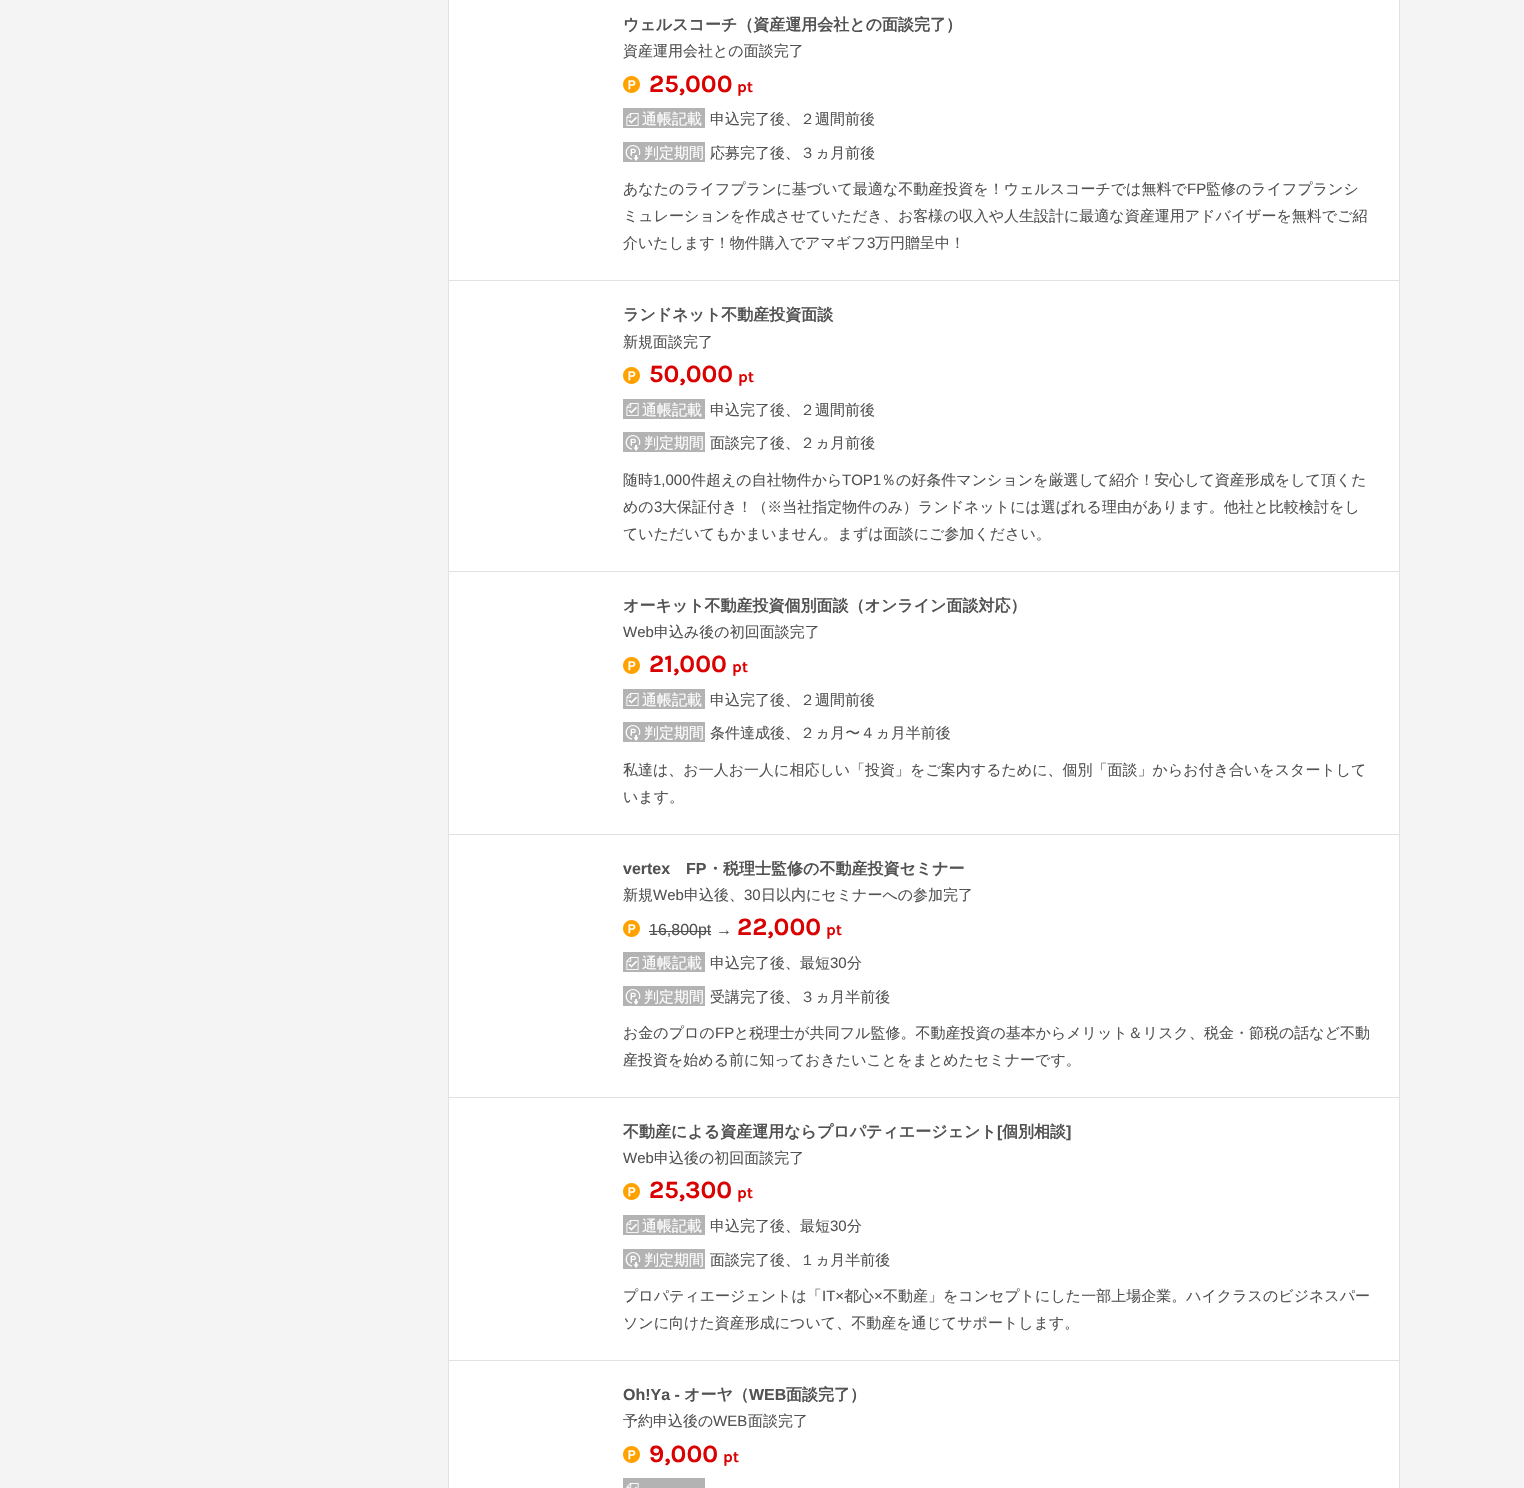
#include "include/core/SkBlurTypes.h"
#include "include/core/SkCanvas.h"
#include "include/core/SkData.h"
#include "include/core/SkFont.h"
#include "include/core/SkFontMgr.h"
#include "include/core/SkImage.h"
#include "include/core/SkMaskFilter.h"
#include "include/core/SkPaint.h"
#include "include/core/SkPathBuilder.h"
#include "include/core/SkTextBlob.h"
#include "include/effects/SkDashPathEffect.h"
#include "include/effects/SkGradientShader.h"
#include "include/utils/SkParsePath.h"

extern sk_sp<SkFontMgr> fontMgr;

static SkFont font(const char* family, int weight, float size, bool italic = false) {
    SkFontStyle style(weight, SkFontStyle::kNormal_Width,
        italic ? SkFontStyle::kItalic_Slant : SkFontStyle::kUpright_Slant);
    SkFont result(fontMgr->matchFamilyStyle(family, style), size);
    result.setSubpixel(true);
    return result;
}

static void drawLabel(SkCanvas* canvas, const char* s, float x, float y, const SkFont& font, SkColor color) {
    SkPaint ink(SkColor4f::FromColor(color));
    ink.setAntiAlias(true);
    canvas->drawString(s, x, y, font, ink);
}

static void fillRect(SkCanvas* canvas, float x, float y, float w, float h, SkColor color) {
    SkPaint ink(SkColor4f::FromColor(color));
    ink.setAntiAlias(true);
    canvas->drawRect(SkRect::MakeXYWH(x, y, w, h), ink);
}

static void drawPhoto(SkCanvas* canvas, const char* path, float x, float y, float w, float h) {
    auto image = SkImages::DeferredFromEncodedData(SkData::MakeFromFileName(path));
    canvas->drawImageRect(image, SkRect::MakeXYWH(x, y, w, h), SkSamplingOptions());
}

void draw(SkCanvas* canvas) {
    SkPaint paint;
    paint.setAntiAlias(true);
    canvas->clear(0xFFF4F4F4);
    paint.setColor(0xFFFFFFFF);
    canvas->drawRect(SkRect::MakeXYWH(448.5f, -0.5f, 951, 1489), paint);
    paint.setStroke(true);
    paint.setStrokeWidth(1);
    paint.setColor(0xFFE2E2E2);
    canvas->drawRect(SkRect::MakeXYWH(448.5f, -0.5f, 951, 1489), paint);
    fillRect(canvas, 449, 280, 950, 1, 0xFFE2E2E2);
    SkFont font1 = font("WenQuanYi Zen Hei", 700, 16);
    drawLabel(canvas, "ウェルスコーチ（資産運用会社との面談完了）", 623, 30, font1, 0xFF525252);
    SkFont font2 = font("WenQuanYi Zen Hei", 500, 15);
    drawLabel(canvas, "資産運用会社との面談完了", 623, 56, font2, 0xFF525252);
    drawPhoto(canvas, "assets/img1.png", 623, 76, 17, 17);
    SkFont font3 = font("Karla", 700, 25);
    drawLabel(canvas, "25,000", 649, 92, font3, 0xFFDA0201);
    SkFont font4 = font("Karla", 700, 16);
    drawLabel(canvas, "pt", 737, 92, font4, 0xFFDA0201);
    fillRect(canvas, 623, 108, 82, 20, 0xFFB3B3B3);
    drawPhoto(canvas, "assets/img2.png", 626, 113, 13, 13);
    drawLabel(canvas, "通帳記載", 642, 124, font2, 0xFFFFFFFF);
    drawLabel(canvas, "申込完了後、２週間前後", 710, 124, font2, 0xFF525252);
    fillRect(canvas, 623, 142, 82, 20, 0xFFB3B3B3);
    drawPhoto(canvas, "assets/img3.png", 625, 145, 16, 16);
    drawLabel(canvas, "判定期間", 644, 158, font2, 0xFFFFFFFF);
    drawLabel(canvas, "応募完了後、３ヵ月前後", 710, 158, font2, 0xFF525252);
    drawLabel(canvas, "あなたのライフプランに基づいて最適な不動産投資を！ウェルスコーチでは無料で", 623, 194, font2, 0xFF525252);
    SkFont font5 = font("Liberation Sans", 400, 15);
    drawLabel(canvas, "FP", 1187, 194, font5, 0xFF525252);
    drawLabel(canvas, "監修のライフプランシ", 1206, 194, font2, 0xFF525252);
    drawLabel(canvas, "ミュレーションを作成させていただき、お客様の収入や人生設計に最適な資産運用アドバイザーを無料でご紹", 623, 221, font2, 0xFF525252);
    drawLabel(canvas, "介いたします！物件購入でアマギフ", 623, 248, font2, 0xFF525252);
    drawLabel(canvas, "3", 867, 248, font5, 0xFF525252);
    drawLabel(canvas, "万円贈呈中！", 875, 248, font2, 0xFF525252);
    fillRect(canvas, 449, 571, 950, 1, 0xFFE2E2E2);
    drawLabel(canvas, "ランドネット不動産投資面談", 623, 320, font1, 0xFF525252);
    drawLabel(canvas, "新規面談完了", 623, 347, font2, 0xFF525252);
    drawPhoto(canvas, "assets/img1.png", 623, 367, 17, 17);
    drawLabel(canvas, "50,000", 649, 382, font3, 0xFFDA0201);
    drawLabel(canvas, "pt", 738, 382, font4, 0xFFDA0201);
    fillRect(canvas, 623, 399, 82, 20, 0xFFB3B3B3);
    drawPhoto(canvas, "assets/img2.png", 626, 403, 13, 13);
    drawLabel(canvas, "通帳記載", 642, 415, font2, 0xFFFFFFFF);
    drawLabel(canvas, "申込完了後、２週間前後", 710, 415, font2, 0xFF525252);
    fillRect(canvas, 623, 432, 82, 20, 0xFFB3B3B3);
    drawPhoto(canvas, "assets/img3.png", 625, 435, 16, 16);
    drawLabel(canvas, "判定期間", 644, 448, font2, 0xFFFFFFFF);
    drawLabel(canvas, "面談完了後、２ヵ月前後", 710, 448, font2, 0xFF525252);
    drawLabel(canvas, "随時", 623, 485, font2, 0xFF525252);
    drawLabel(canvas, "1,000", 653, 485, font5, 0xFF525252);
    drawLabel(canvas, "件超えの自社物件から", 691, 485, font2, 0xFF525252);
    drawLabel(canvas, "TOP1", 842, 485, font5, 0xFF525252);
    drawLabel(canvas, "％の好条件マンションを厳選して紹介！安心して資産形成をして頂くた", 881, 485, font2, 0xFF525252);
    drawLabel(canvas, "めの", 623, 512, font2, 0xFF525252);
    drawLabel(canvas, "3", 654, 512, font5, 0xFF525252);
    drawLabel(canvas, "大保証付き！（※当社指定物件のみ）ランドネットには選ばれる理由があります。他社と比較検討をし", 662, 512, font2, 0xFF525252);
    drawLabel(canvas, "ていただいてもかまいません。まずは面談にご参加ください。", 623, 539, font2, 0xFF525252);
    fillRect(canvas, 449, 834, 950, 1, 0xFFE2E2E2);
    drawLabel(canvas, "オーキット不動産投資個別面談（オンライン面談対応）", 623, 611, font1, 0xFF525252);
    drawLabel(canvas, "Web", 623, 637, font5, 0xFF525252);
    drawLabel(canvas, "申込み後の初回面談完了", 654, 637, font2, 0xFF525252);
    drawPhoto(canvas, "assets/img1.png", 623, 657, 17, 17);
    drawLabel(canvas, "21,000", 649, 672, font3, 0xFFDA0201);
    drawLabel(canvas, "pt", 732, 672, font4, 0xFFDA0201);
    fillRect(canvas, 623, 689, 82, 20, 0xFFB3B3B3);
    drawPhoto(canvas, "assets/img2.png", 626, 693, 13, 13);
    drawLabel(canvas, "通帳記載", 642, 705, font2, 0xFFFFFFFF);
    drawLabel(canvas, "申込完了後、２週間前後", 710, 705, font2, 0xFF525252);
    fillRect(canvas, 623, 722, 82, 20, 0xFFB3B3B3);
    drawPhoto(canvas, "assets/img3.png", 625, 725, 16, 16);
    drawLabel(canvas, "判定期間", 644, 738, font2, 0xFFFFFFFF);
    drawLabel(canvas, "条件達成後、２ヵ月〜４ヵ月半前後", 710, 738, font2, 0xFF525252);
    drawLabel(canvas, "私達は、お一人お一人に相応しい「投資」をご案内するために、個別「面談」からお付き合いをスタートして", 623, 775, font2, 0xFF525252);
    drawLabel(canvas, "います。", 623, 802, font2, 0xFF525252);
    fillRect(canvas, 449, 1097, 950, 1, 0xFFE2E2E2);
    SkFont font6 = font("Liberation Sans", 700, 16);
    drawLabel(canvas, "vertex", 623, 874, font6, 0xFF525252);
    drawLabel(canvas, "FP", 686, 874, font6, 0xFF525252);
    drawLabel(canvas, "・税理士監修の不動産投資セミナー", 707, 874, font1, 0xFF525252);
    drawLabel(canvas, "新規", 623, 900, font2, 0xFF525252);
    drawLabel(canvas, "Web", 653, 900, font5, 0xFF525252);
    drawLabel(canvas, "申込後、", 684, 900, font2, 0xFF525252);
    drawLabel(canvas, "30", 744, 900, font5, 0xFF525252);
    drawLabel(canvas, "日以内にセミナーへの参加完了", 761, 900, font2, 0xFF525252);
    drawPhoto(canvas, "assets/img1.png", 623, 920, 17, 17);
    SkFont font7 = font("Liberation Sans", 400, 16);
    drawLabel(canvas, "16,800pt", 649, 935, font7, 0xFF525252);
    fillRect(canvas, 649, 931, 62, 1, 0xFF525252);
    drawLabel(canvas, "→", 716, 935, font7, 0xFF525252);
    drawLabel(canvas, "22,000", 737, 935, font3, 0xFFDA0201);
    drawLabel(canvas, "pt", 826, 935, font4, 0xFFDA0201);
    fillRect(canvas, 623, 952, 82, 20, 0xFFB3B3B3);
    drawPhoto(canvas, "assets/img2.png", 626, 957, 13, 13);
    drawLabel(canvas, "通帳記載", 642, 968, font2, 0xFFFFFFFF);
    drawLabel(canvas, "申込完了後、最短", 710, 968, font2, 0xFF525252);
    drawLabel(canvas, "30", 830, 968, font5, 0xFF525252);
    drawLabel(canvas, "分", 847, 968, font2, 0xFF525252);
    fillRect(canvas, 623, 986, 82, 20, 0xFFB3B3B3);
    drawPhoto(canvas, "assets/img3.png", 625, 989, 16, 16);
    drawLabel(canvas, "判定期間", 644, 1002, font2, 0xFFFFFFFF);
    drawLabel(canvas, "受講完了後、３ヵ月半前後", 710, 1002, font2, 0xFF525252);
    drawLabel(canvas, "お金のプロの", 623, 1038, font2, 0xFF525252);
    drawLabel(canvas, "FP", 715, 1038, font5, 0xFF525252);
    drawLabel(canvas, "と税理士が共同フル監修。不動産投資の基本からメリット＆リスク、税金・節税の話など不動", 734, 1038, font2, 0xFF525252);
    drawLabel(canvas, "産投資を始める前に知っておきたいことをまとめたセミナーです。", 623, 1065, font2, 0xFF525252);
    fillRect(canvas, 449, 1360, 950, 1, 0xFFE2E2E2);
    drawLabel(canvas, "不動産による資産運用ならプロパティエージェント", 623, 1137, font1, 0xFF525252);
    drawLabel(canvas, "[", 997, 1137, font6, 0xFF525252);
    drawLabel(canvas, "個別相談", 1002, 1137, font1, 0xFF525252);
    drawLabel(canvas, "]", 1066, 1137, font6, 0xFF525252);
    drawLabel(canvas, "Web", 623, 1163, font5, 0xFF525252);
    drawLabel(canvas, "申込後の初回面談完了", 654, 1163, font2, 0xFF525252);
    drawPhoto(canvas, "assets/img1.png", 623, 1183, 17, 17);
    drawLabel(canvas, "25,300", 649, 1198, font3, 0xFFDA0201);
    drawLabel(canvas, "pt", 737, 1198, font4, 0xFFDA0201);
    fillRect(canvas, 623, 1215, 82, 20, 0xFFB3B3B3);
    drawPhoto(canvas, "assets/img2.png", 626, 1220, 13, 13);
    drawLabel(canvas, "通帳記載", 642, 1231, font2, 0xFFFFFFFF);
    drawLabel(canvas, "申込完了後、最短", 710, 1231, font2, 0xFF525252);
    drawLabel(canvas, "30", 830, 1231, font5, 0xFF525252);
    drawLabel(canvas, "分", 847, 1231, font2, 0xFF525252);
    fillRect(canvas, 623, 1249, 82, 20, 0xFFB3B3B3);
    drawPhoto(canvas, "assets/img3.png", 625, 1252, 16, 16);
    drawLabel(canvas, "判定期間", 644, 1265, font2, 0xFFFFFFFF);
    drawLabel(canvas, "面談完了後、１ヵ月半前後", 710, 1265, font2, 0xFF525252);
    drawLabel(canvas, "プロパティエージェントは「", 623, 1301, font2, 0xFF525252);
    drawLabel(canvas, "IT×", 822, 1301, font5, 0xFF525252);
    drawLabel(canvas, "都心", 844, 1301, font2, 0xFF525252);
    drawLabel(canvas, "×", 874, 1301, font5, 0xFF525252);
    drawLabel(canvas, "不動産」をコンセプトにした一部上場企業。ハイクラスのビジネスパー", 883, 1301, font2, 0xFF525252);
    drawLabel(canvas, "ソンに向けた資産形成について、不動産を通じてサポートします。", 623, 1328, font2, 0xFF525252);
    drawLabel(canvas, "Oh!Ya -", 623, 1400, font6, 0xFF525252);
    drawLabel(canvas, "オーヤ（", 684, 1400, font1, 0xFF525252);
    drawLabel(canvas, "WEB", 749, 1400, font6, 0xFF525252);
    drawLabel(canvas, "面談完了）", 786, 1400, font1, 0xFF525252);
    drawLabel(canvas, "予約申込後の", 623, 1426, font2, 0xFF525252);
    drawLabel(canvas, "WEB", 713, 1426, font5, 0xFF525252);
    drawLabel(canvas, "面談完了", 748, 1426, font2, 0xFF525252);
    drawPhoto(canvas, "assets/img1.png", 623, 1446, 17, 17);
    drawLabel(canvas, "9,000", 649, 1462, font3, 0xFFDA0201);
    drawLabel(canvas, "pt", 723, 1462, font4, 0xFFDA0201);
    fillRect(canvas, 623, 1478, 82, 10, 0xFFB3B3B3);
    drawPhoto(canvas, "assets/img4.png", 626, 1483, 13, 5);
}
